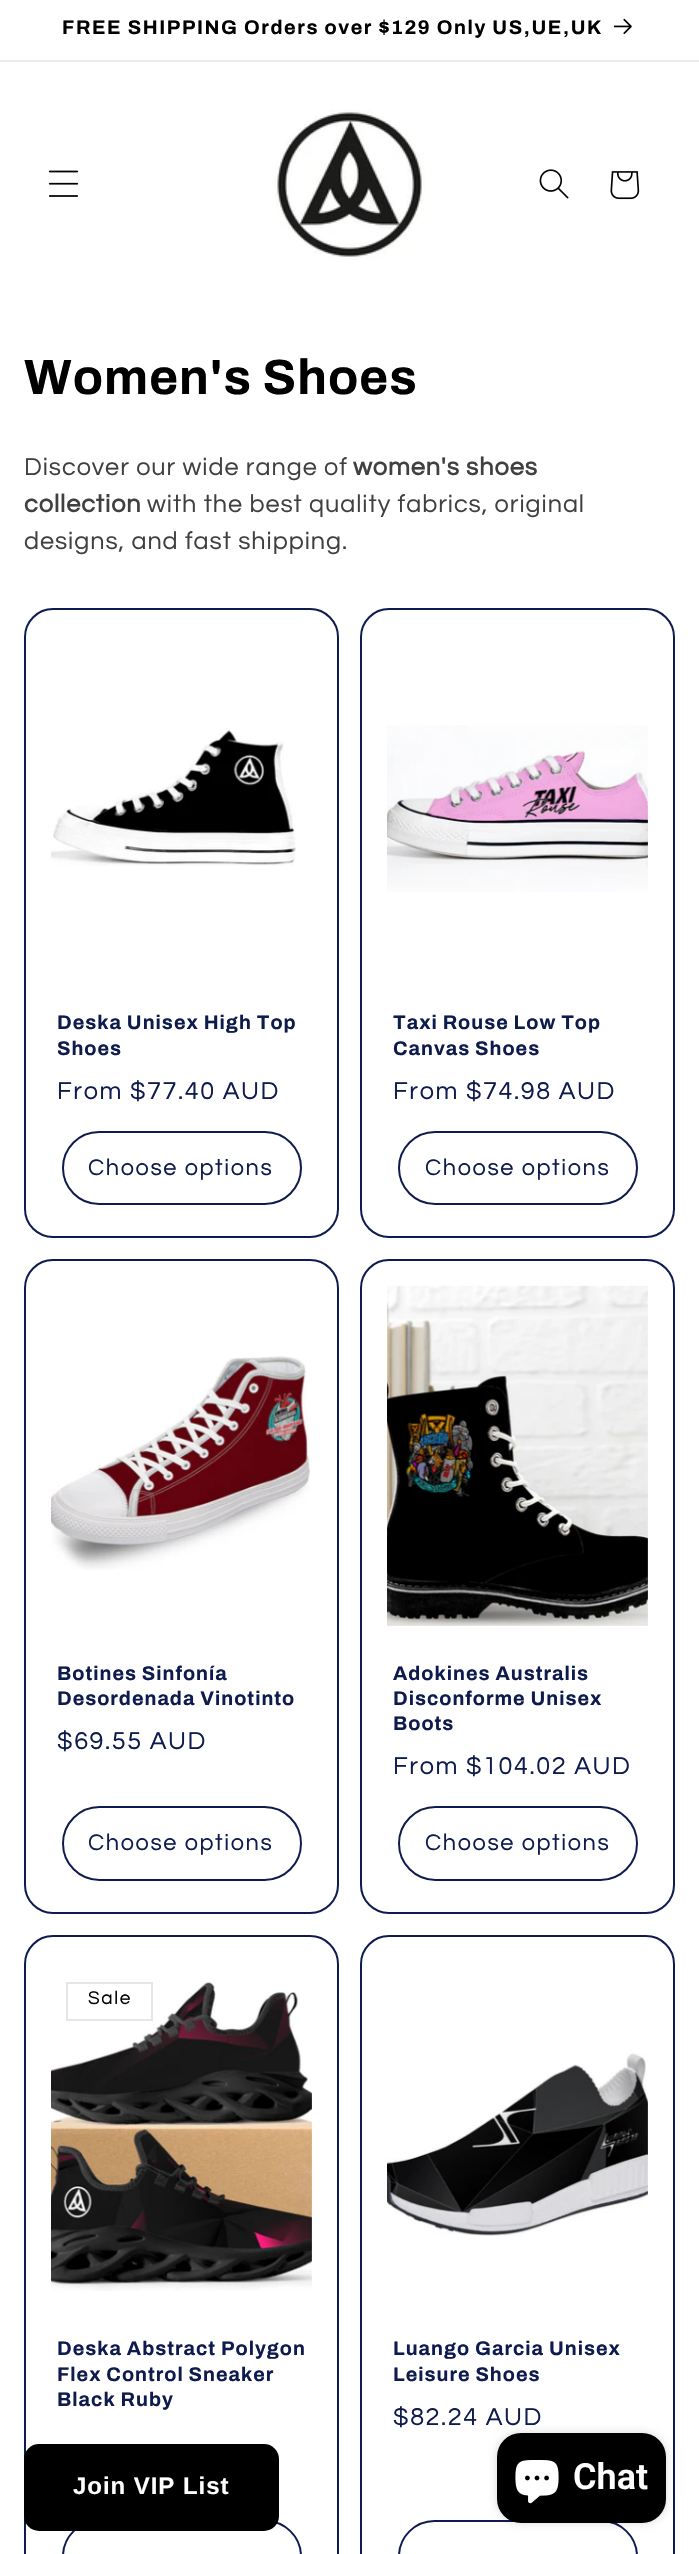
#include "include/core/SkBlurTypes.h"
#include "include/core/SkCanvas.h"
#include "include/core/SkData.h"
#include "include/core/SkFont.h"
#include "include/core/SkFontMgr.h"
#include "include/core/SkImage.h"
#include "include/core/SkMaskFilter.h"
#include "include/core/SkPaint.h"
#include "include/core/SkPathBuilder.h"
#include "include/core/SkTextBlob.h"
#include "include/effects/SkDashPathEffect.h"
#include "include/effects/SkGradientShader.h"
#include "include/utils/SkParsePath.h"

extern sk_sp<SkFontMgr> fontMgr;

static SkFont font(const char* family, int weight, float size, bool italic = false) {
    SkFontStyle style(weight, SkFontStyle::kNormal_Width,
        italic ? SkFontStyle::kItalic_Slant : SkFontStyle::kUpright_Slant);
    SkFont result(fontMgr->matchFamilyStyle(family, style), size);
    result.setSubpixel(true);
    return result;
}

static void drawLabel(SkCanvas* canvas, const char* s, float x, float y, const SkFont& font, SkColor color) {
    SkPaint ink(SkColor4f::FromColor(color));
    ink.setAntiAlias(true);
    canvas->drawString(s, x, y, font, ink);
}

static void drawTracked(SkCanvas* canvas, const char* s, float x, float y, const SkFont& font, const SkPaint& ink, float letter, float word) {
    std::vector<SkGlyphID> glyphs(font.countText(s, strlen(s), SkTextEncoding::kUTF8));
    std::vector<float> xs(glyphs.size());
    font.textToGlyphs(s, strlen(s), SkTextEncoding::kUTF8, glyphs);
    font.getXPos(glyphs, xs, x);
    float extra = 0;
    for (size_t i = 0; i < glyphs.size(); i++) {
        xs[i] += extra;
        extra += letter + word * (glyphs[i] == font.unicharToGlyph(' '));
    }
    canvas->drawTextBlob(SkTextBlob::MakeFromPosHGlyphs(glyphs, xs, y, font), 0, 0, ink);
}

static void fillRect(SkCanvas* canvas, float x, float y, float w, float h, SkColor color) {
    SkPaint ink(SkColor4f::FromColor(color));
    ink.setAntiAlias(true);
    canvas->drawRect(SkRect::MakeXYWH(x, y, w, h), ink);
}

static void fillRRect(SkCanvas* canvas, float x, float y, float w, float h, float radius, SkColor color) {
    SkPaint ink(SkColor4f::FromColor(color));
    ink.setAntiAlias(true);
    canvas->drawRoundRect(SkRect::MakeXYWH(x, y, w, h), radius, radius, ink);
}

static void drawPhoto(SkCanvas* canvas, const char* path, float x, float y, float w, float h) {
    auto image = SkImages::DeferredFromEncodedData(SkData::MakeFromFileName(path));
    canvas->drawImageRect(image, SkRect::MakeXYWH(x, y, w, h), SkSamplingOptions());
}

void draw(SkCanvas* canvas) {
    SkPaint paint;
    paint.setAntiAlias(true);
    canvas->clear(0xFFFFFFFF);
    fillRect(canvas, 0, 60, 699, 2, 0xFFEBEBEB);
    SkFont font1 = font("Archivo", 700, 19.8f);
    paint.setColor(0xFF000000);
    drawTracked(canvas, "FREE SHIPPING Orders over $129 Only US,UE,UK", 62, 34, font1, paint, 1.6f, 0);
    drawPhoto(canvas, "assets/img1.png", 614, 18, 18, 16);
    drawPhoto(canvas, "assets/img2.png", 48, 170, 31, 27);
    drawPhoto(canvas, "assets/img3.png", 275, 110, 150, 150);
    drawPhoto(canvas, "assets/img4.png", 539, 169, 30, 30);
    drawPhoto(canvas, "assets/img5.png", 610, 171, 30, 29);
    SkFont font2 = font("Archivo", 700, 49.5f);
    drawTracked(canvas, "Women's Shoes", 24, 394, font2, paint, 1, 0);
    SkFont font3 = font("Questrial", 400, 25.25f);
    paint.setColor(0xFF404040);
    drawTracked(canvas, "Discover our wide range of", 24, 475, font3, paint, 0.95f, 0);
    SkFont font4 = font("Questrial", 700, 25.25f);
    drawTracked(canvas, "women's shoes", 353, 475, font4, paint, 0.95f, 0);
    drawTracked(canvas, "collection", 24, 512, font4, paint, 0.95f, 0);
    drawTracked(canvas, "with the best quality fabrics, original", 147, 512, font3, paint, 0.95f, 0);
    drawTracked(canvas, "designs, and fast shipping.", 24, 549, font3, paint, 0.95f, 0);
    paint.setStroke(true);
    paint.setStrokeWidth(2);
    paint.setColor(0xFF0E1B4D);
    canvas->drawRoundRect(SkRect::MakeXYWH(25, 609, 313, 628), 28, 28, paint);
    drawPhoto(canvas, "assets/img6.png", 51, 730, 245, 136);
    paint.setStroke(false);
    drawTracked(canvas, "Deska Unisex High Top", 57, 1029, font1, paint, 1, 0);
    drawTracked(canvas, "Shoes", 57, 1055, font1, paint, 1, 0);
    drawTracked(canvas, "From $77.40 AUD", 57, 1099, font3, paint, 1.6f, 0);
    paint.setStroke(true);
    canvas->drawRoundRect(SkRect::MakeXYWH(63, 1132, 238, 72), 36, 36, paint);
    SkFont font5 = font("Questrial", 400, 23.5f);
    paint.setStroke(false);
    drawTracked(canvas, "Choose options", 88, 1175, font5, paint, 1.6f, 0);
    paint.setStroke(true);
    canvas->drawRoundRect(SkRect::MakeXYWH(361, 609, 313, 628), 28, 28, paint);
    drawPhoto(canvas, "assets/img7.png", 387, 725, 261, 167);
    paint.setStroke(false);
    drawTracked(canvas, "Taxi Rouse Low Top", 393, 1029, font1, paint, 1, 0);
    drawTracked(canvas, "Canvas Shoes", 393, 1055, font1, paint, 1, 0);
    drawTracked(canvas, "From $74.98 AUD", 393, 1099, font3, paint, 1.6f, 0);
    paint.setStroke(true);
    canvas->drawRoundRect(SkRect::MakeXYWH(399, 1132, 238, 72), 36, 36, paint);
    paint.setStroke(false);
    drawTracked(canvas, "Choose options", 425, 1175, font5, paint, 1.6f, 0);
    paint.setStroke(true);
    canvas->drawRoundRect(SkRect::MakeXYWH(25, 1260, 313, 653), 28, 28, paint);
    drawPhoto(canvas, "assets/img8.png", 51, 1356, 259, 214);
    paint.setStroke(false);
    drawTracked(canvas, "Botines Sinfonía", 57, 1680, font1, paint, 1, 0);
    drawTracked(canvas, "Desordenada Vinotinto", 57, 1705, font1, paint, 1, 0);
    drawTracked(canvas, "$69.55 AUD", 57, 1749, font3, paint, 1.6f, 0);
    paint.setStroke(true);
    canvas->drawRoundRect(SkRect::MakeXYWH(63, 1807, 238, 73), 36.5f, 36.5f, paint);
    paint.setStroke(false);
    drawTracked(canvas, "Choose options", 88, 1850, font5, paint, 1.6f, 0);
    paint.setStroke(true);
    canvas->drawRoundRect(SkRect::MakeXYWH(361, 1260, 313, 653), 28, 28, paint);
    drawPhoto(canvas, "assets/img9.png", 387, 1285, 261, 341);
    paint.setStroke(false);
    drawTracked(canvas, "Adokines Australis", 393, 1680, font1, paint, 1, 0);
    drawTracked(canvas, "Disconforme Unisex", 393, 1705, font1, paint, 1, 0);
    drawTracked(canvas, "Boots", 393, 1730, font1, paint, 1, 0);
    drawTracked(canvas, "From $104.02 AUD", 393, 1774, font3, paint, 1.6f, 0);
    paint.setStroke(true);
    canvas->drawRoundRect(SkRect::MakeXYWH(399, 1807, 238, 73), 36.5f, 36.5f, paint);
    paint.setStroke(false);
    drawTracked(canvas, "Choose options", 425, 1850, font5, paint, 1.6f, 0);
    paint.setStroke(true);
    canvas->drawRoundRect(SkRect::MakeXYWH(25, 1936, 313, 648), 28, 28, paint);
    drawPhoto(canvas, "assets/img10.png", 51, 1982, 261, 309);
    paint.setColor(0xFFE6E6E6);
    canvas->drawRect(SkRect::MakeXYWH(67, 1983, 85, 37), paint);
    SkFont font6 = font("Questrial", 400, 19);
    paint.setStroke(false);
    paint.setColor(0xFF000000);
    drawTracked(canvas, "Sale", 88, 2004, font6, paint, 1.6f, 0);
    paint.setColor(0xFF0E1B4D);
    drawTracked(canvas, "Deska Abstract Polygon", 57, 2355, font1, paint, 1, 0);
    drawTracked(canvas, "Flex Control Sneaker", 57, 2381, font1, paint, 1, 0);
    drawTracked(canvas, "Black Ruby", 57, 2406, font1, paint, 1, 0);
    paint.setStroke(true);
    canvas->drawRoundRect(SkRect::MakeXYWH(63, 2521, 238, 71), 36, 36, paint);
    canvas->drawRoundRect(SkRect::MakeXYWH(361, 1936, 313, 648), 28, 28, paint);
    drawPhoto(canvas, "assets/img11.png", 387, 2053, 261, 183);
    paint.setStroke(false);
    drawTracked(canvas, "Luango Garcia Unisex", 393, 2355, font1, paint, 1, 0);
    drawTracked(canvas, "Leisure Shoes", 393, 2381, font1, paint, 1, 0);
    drawTracked(canvas, "$82.24 AUD", 393, 2425, font3, paint, 1.6f, 0);
    paint.setStroke(true);
    canvas->drawRoundRect(SkRect::MakeXYWH(399, 2521, 238, 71), 36, 36, paint);
    fillRRect(canvas, 24, 2444, 255, 87, 15, 0xFF000000);
    SkFont font7 = font("Liberation Sans", 700, 24);
    paint.setStroke(false);
    paint.setColor(0xFFFFFFFF);
    drawTracked(canvas, "Join VIP List", 73, 2494, font7, paint, 0.95f, 0);
    paint.setColor(0x26000000);
    paint.setMaskFilter(SkMaskFilter::MakeBlur(kNormal_SkBlurStyle, 4));
    canvas->drawRoundRect(SkRect::MakeXYWH(497, 2433, 169, 90), 24, 24, paint);
    paint.setMaskFilter(nullptr);
    fillRRect(canvas, 497, 2433, 169, 90, 24, 0xFF000000);
    drawPhoto(canvas, "assets/img12.png", 515, 2460, 44, 44);
    SkFont font8 = font("Roboto", 600, 36);
    drawLabel(canvas, "Chat", 573, 2489, font8, 0xFFFFFFFF);
}
